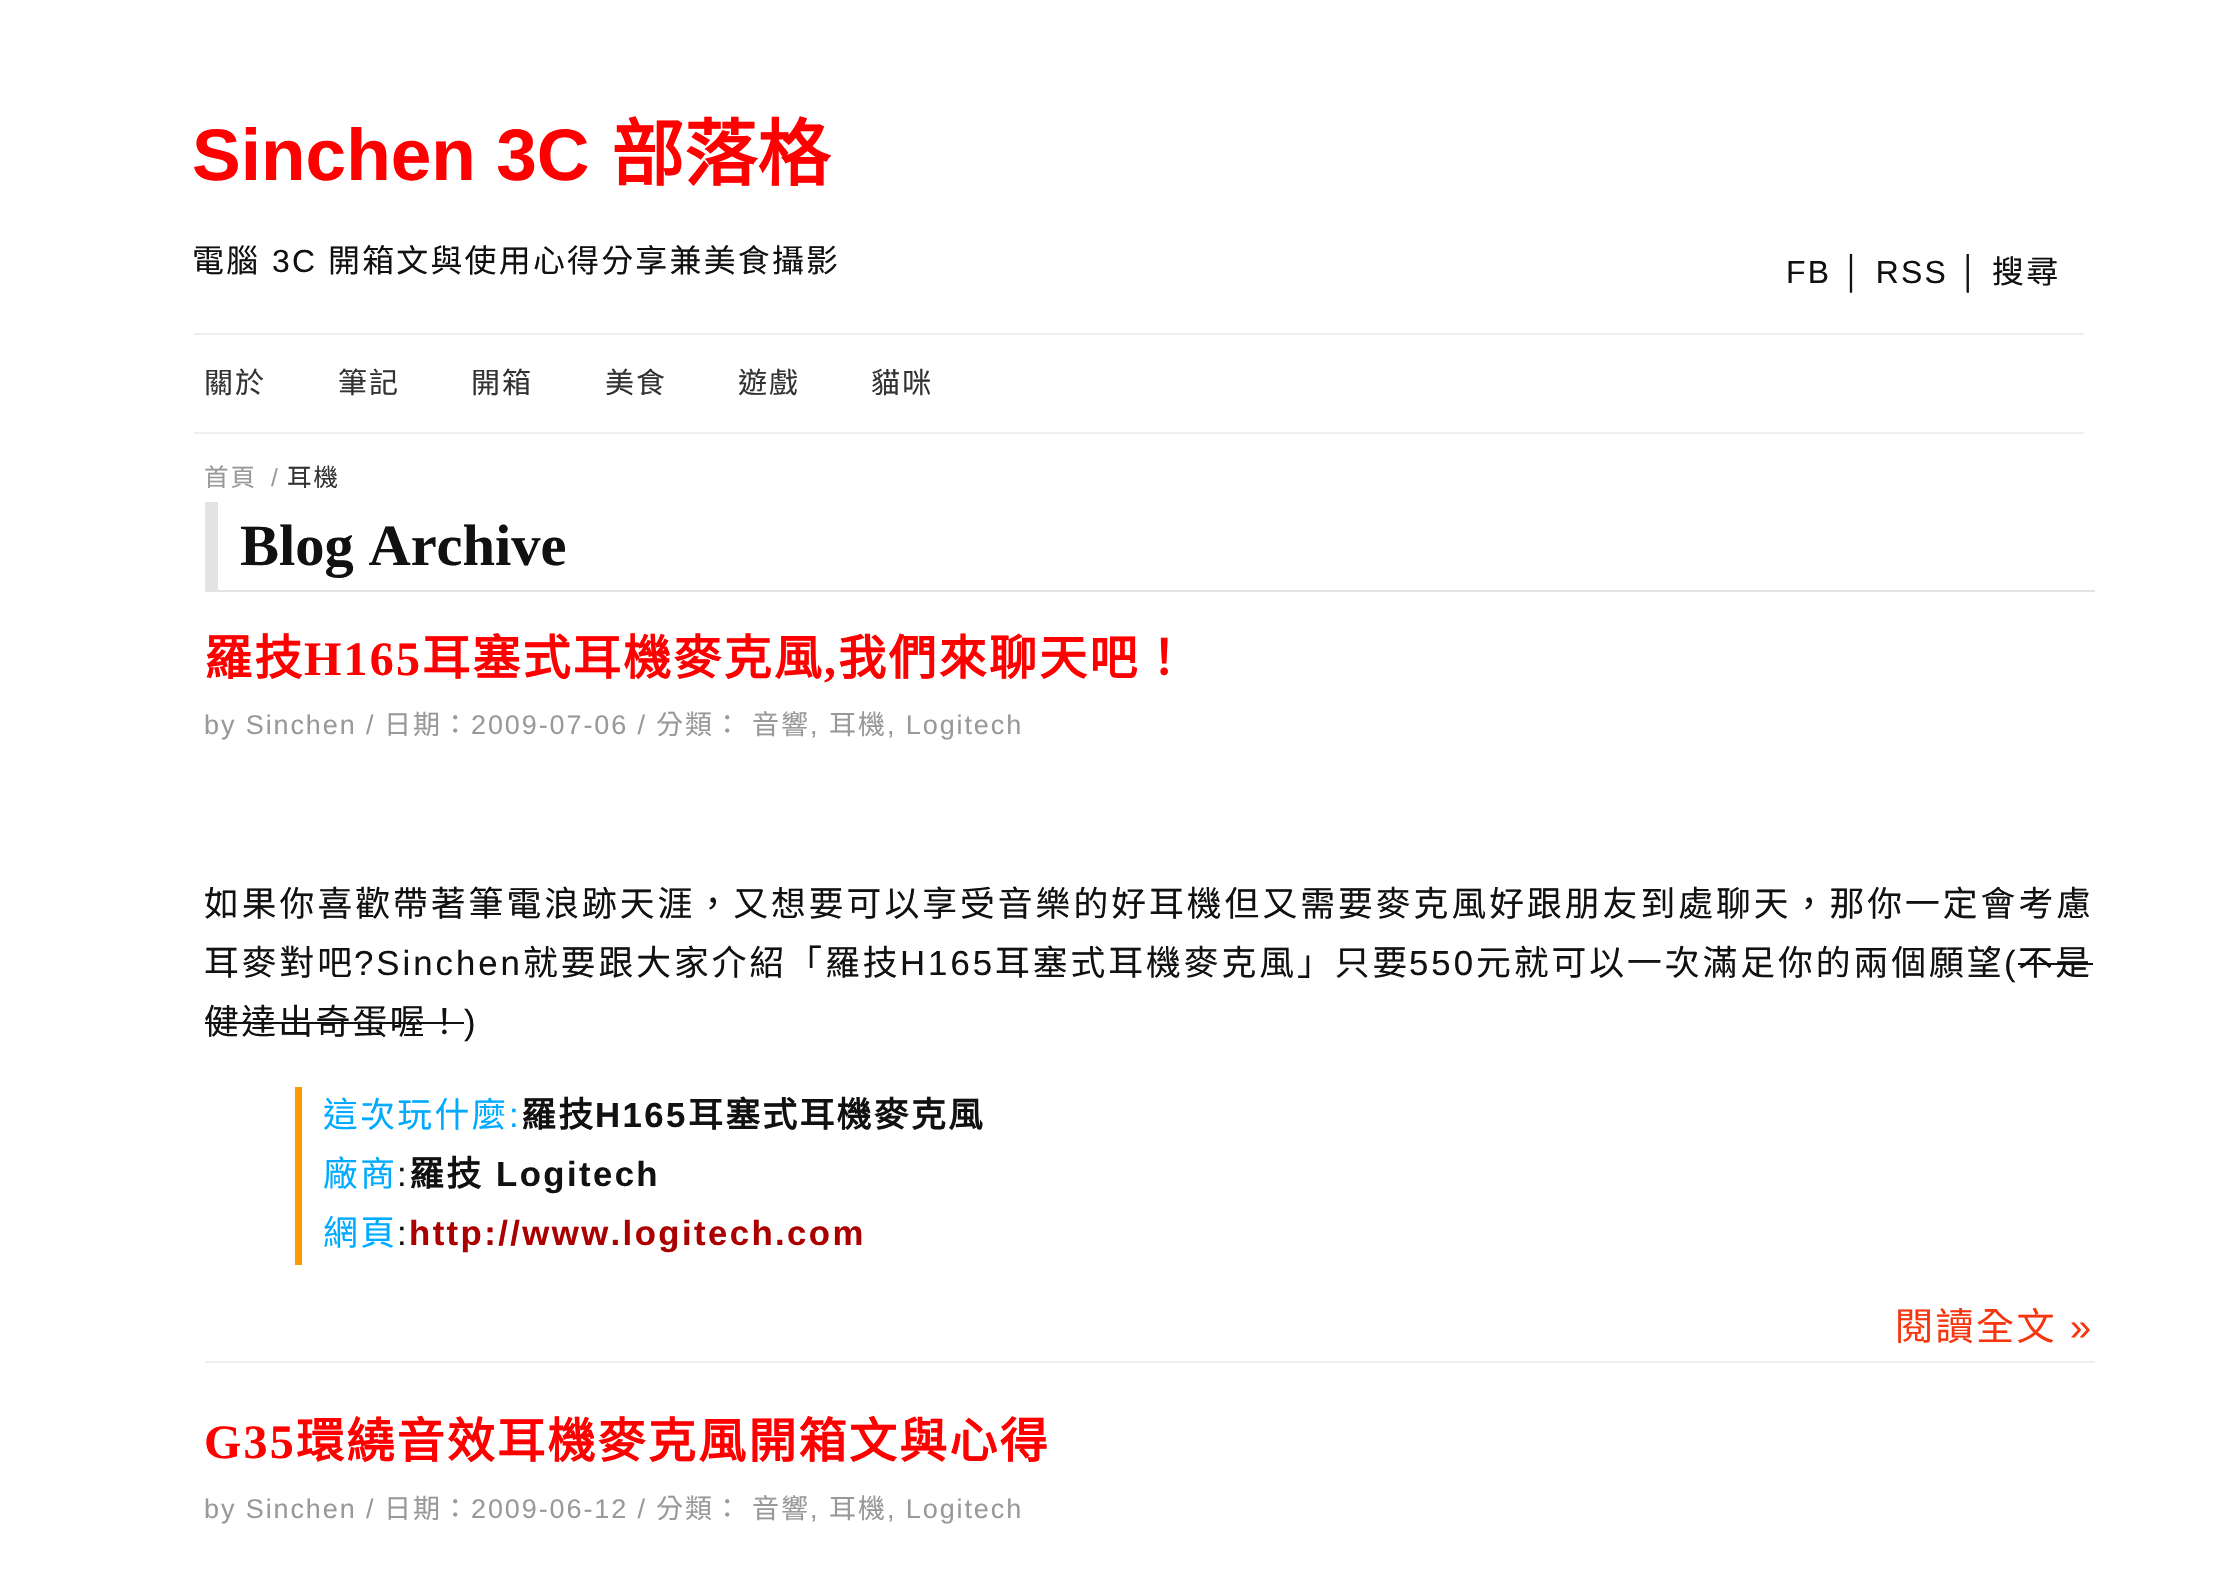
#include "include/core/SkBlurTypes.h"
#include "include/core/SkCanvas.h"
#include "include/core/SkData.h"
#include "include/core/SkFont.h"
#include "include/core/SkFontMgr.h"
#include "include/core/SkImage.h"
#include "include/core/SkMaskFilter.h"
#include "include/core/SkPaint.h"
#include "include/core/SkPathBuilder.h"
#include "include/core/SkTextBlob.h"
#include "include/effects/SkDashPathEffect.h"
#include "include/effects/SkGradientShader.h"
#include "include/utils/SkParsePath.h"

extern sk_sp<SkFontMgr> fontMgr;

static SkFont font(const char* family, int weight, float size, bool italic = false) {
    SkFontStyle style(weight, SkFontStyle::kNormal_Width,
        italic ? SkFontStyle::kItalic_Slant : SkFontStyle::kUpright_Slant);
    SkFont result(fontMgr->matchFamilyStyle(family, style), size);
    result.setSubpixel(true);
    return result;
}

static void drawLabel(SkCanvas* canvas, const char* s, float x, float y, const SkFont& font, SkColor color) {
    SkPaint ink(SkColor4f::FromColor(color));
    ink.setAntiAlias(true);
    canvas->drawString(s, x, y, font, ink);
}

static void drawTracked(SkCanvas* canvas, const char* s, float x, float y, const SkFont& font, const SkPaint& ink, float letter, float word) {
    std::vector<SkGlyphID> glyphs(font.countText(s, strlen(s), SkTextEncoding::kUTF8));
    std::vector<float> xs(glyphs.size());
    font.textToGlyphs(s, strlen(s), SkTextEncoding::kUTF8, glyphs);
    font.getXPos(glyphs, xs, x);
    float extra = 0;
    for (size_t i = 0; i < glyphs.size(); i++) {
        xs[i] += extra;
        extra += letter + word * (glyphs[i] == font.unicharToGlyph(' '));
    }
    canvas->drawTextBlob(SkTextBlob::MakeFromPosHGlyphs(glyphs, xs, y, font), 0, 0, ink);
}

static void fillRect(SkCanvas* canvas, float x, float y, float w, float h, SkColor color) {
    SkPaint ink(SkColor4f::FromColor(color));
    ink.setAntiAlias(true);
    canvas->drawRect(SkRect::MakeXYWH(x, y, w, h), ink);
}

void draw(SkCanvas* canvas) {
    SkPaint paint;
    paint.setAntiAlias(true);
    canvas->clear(0xFFFFFFFF);
    SkFont font1 = font("Liberation Sans", 700, 73);
    drawLabel(canvas, "Sinchen 3C", 192, 180, font1, 0xFFFF0000);
    SkFont font2 = font("Noto Sans CJK TC", 700, 73);
    drawLabel(canvas, "部落格", 611, 180, font2, 0xFFFF0000);
    SkFont font3 = font("Noto Sans CJK TC", 400, 31.9f);
    paint.setColor(0xFF111111);
    drawTracked(canvas, "電腦", 192, 272, font3, paint, 2.25f, 0);
    SkFont font4 = font("Liberation Sans", 400, 31.9f);
    drawTracked(canvas, "3C", 272, 272, font4, paint, 2.25f, 0);
    drawTracked(canvas, "開箱文與使用心得分享兼美食攝影", 328, 272, font3, paint, 2.25f, 0);
    drawTracked(canvas, "FB │ RSS │", 1786, 283, font4, paint, 2.25f, 0);
    drawTracked(canvas, "搜尋", 1992, 283, font3, paint, 2.25f, 0);
    fillRect(canvas, 194, 333, 1890, 2, 0xFFEEEEEE);
    fillRect(canvas, 194, 432, 1890, 2, 0xFFEEEEEE);
    SkFont font5 = font("Noto Sans CJK TC", 400, 29);
    paint.setColor(0xFF333333);
    drawTracked(canvas, "關於", 204, 393, font5, paint, 2, 0);
    drawTracked(canvas, "筆記", 338, 393, font5, paint, 2, 0);
    drawTracked(canvas, "開箱", 471, 393, font5, paint, 2, 0);
    drawTracked(canvas, "美食", 605, 393, font5, paint, 2, 0);
    drawTracked(canvas, "遊戲", 738, 393, font5, paint, 2, 0);
    drawTracked(canvas, "貓咪", 871, 393, font5, paint, 2, 0);
    SkFont font6 = font("Noto Sans CJK TC", 400, 24.5f);
    paint.setColor(0xFF999999);
    drawTracked(canvas, "首頁", 204, 486, font6, paint, 2, 0);
    SkFont font7 = font("Liberation Sans", 400, 24.5f);
    drawTracked(canvas, "/", 271, 486, font7, paint, 2, 0);
    paint.setColor(0xFF333333);
    drawTracked(canvas, "耳機", 287, 486, font6, paint, 2, 0);
    fillRect(canvas, 218, 590, 1877, 2, 0xFFE3E3E3);
    fillRect(canvas, 205, 502, 13, 90, 0xFFE3E3E3);
    SkFont font8 = font("Liberation Serif", 700, 58.5f);
    drawLabel(canvas, "Blog Archive", 240, 565, font8, 0xFF111111);
    SkFont font9 = font("Noto Sans CJK TC", 700, 48);
    paint.setColor(0xFFFF0000);
    drawTracked(canvas, "羅技", 204, 675, font9, paint, 2.25f, 0);
    SkFont font10 = font("Liberation Serif", 700, 48);
    drawTracked(canvas, "H165", 304, 675, font10, paint, 2.25f, 0);
    drawTracked(canvas, "耳塞式耳機麥克風", 422, 675, font9, paint, 2.25f, 0);
    drawTracked(canvas, ",", 824, 675, font10, paint, 2.25f, 0);
    drawTracked(canvas, "我們來聊天吧！", 838, 675, font9, paint, 2.25f, 0);
    SkFont font11 = font("Liberation Sans", 400, 27);
    paint.setColor(0xFF999999);
    drawTracked(canvas, "by Sinchen /", 204, 734, font11, paint, 1.9f, 0);
    SkFont font12 = font("Noto Sans CJK TC", 400, 27);
    drawTracked(canvas, "日期：", 384, 734, font12, paint, 1.9f, 0);
    drawTracked(canvas, "2009-07-06 /", 471, 734, font11, paint, 1.9f, 0);
    drawTracked(canvas, "分類：", 656, 734, font12, paint, 1.9f, 0);
    drawTracked(canvas, "音響", 752, 734, font12, paint, 1.9f, 0);
    drawTracked(canvas, ",", 810, 734, font11, paint, 1.9f, 0);
    drawTracked(canvas, "耳機", 829, 734, font12, paint, 1.9f, 0);
    drawTracked(canvas, ", Logitech", 887, 734, font11, paint, 1.9f, 0);
    SkFont font13 = font("Noto Sans CJK TC", 400, 34.75f);
    paint.setColor(0xFF111111);
    drawTracked(canvas, "如果你喜歡帶著筆電浪跡天涯，又想要可以享受音樂的好耳機但又需要麥克風好跟朋友到處聊天，那你一定會考慮", 204, 916, font13, paint, 3.05f, 0);
    drawTracked(canvas, "耳麥對吧", 204, 975, font13, paint, 3, 0);
    SkFont font14 = font("Liberation Sans", 400, 34.75f);
    drawTracked(canvas, "?Sinchen", 354, 975, font14, paint, 3, 0);
    drawTracked(canvas, "就要跟大家介紹「羅技", 523, 975, font13, paint, 3, 0);
    drawTracked(canvas, "H165", 900, 975, font14, paint, 3, 0);
    drawTracked(canvas, "耳塞式耳機麥克風」只要", 995, 975, font13, paint, 3, 0);
    drawTracked(canvas, "550", 1409, 975, font14, paint, 3, 0);
    drawTracked(canvas, "元就可以一次滿足你的兩個願望", 1476, 975, font13, paint, 3, 0);
    drawTracked(canvas, "(", 2004, 975, font14, paint, 3, 0);
    drawTracked(canvas, "不是", 2018, 975, font13, paint, 2.4f, 0);
    fillRect(canvas, 2018, 963, 75, 2, 0xFF111111);
    drawTracked(canvas, "健達出奇蛋喔！", 204, 1034, font13, paint, 2.4f, 0);
    fillRect(canvas, 205, 1022, 259, 2, 0xFF111111);
    drawTracked(canvas, ")", 464, 1034, font14, paint, 2.4f, 0);
    fillRect(canvas, 295, 1087, 7, 178, 0xFFFF9900);
    paint.setColor(0xFF00AAFF);
    drawTracked(canvas, "這次玩什麼", 323, 1127, font13, paint, 2.4f, 0);
    drawTracked(canvas, ":", 509, 1127, font14, paint, 2.4f, 0);
    SkFont font15 = font("Noto Sans CJK TC", 700, 34.75f);
    paint.setColor(0xFF111111);
    drawTracked(canvas, "羅技", 521, 1127, font15, paint, 2.4f, 0);
    SkFont font16 = font("Liberation Sans", 700, 34.75f);
    drawTracked(canvas, "H165", 595, 1127, font16, paint, 2.4f, 0);
    drawTracked(canvas, "耳塞式耳機麥克風", 688, 1127, font15, paint, 2.4f, 0);
    paint.setColor(0xFF00AAFF);
    drawTracked(canvas, "廠商", 323, 1186, font13, paint, 2.4f, 0);
    paint.setColor(0xFF111111);
    drawTracked(canvas, ":", 397, 1186, font14, paint, 2.4f, 0);
    drawTracked(canvas, "羅技", 409, 1186, font15, paint, 2.4f, 0);
    drawTracked(canvas, "Logitech", 496, 1186, font16, paint, 2.4f, 0);
    paint.setColor(0xFF00AAFF);
    drawTracked(canvas, "網頁", 323, 1245, font13, paint, 2.4f, 0);
    paint.setColor(0xFF111111);
    drawTracked(canvas, ":", 397, 1245, font14, paint, 2.4f, 0);
    paint.setColor(0xFFAA0000);
    drawTracked(canvas, "http://www.logitech.com", 409, 1245, font16, paint, 2.4f, 0);
    fillRect(canvas, 205, 1361, 1890, 2, 0xFFEEEEEE);
    SkFont font17 = font("Noto Sans CJK TC", 400, 38);
    paint.setColor(0xFFF5360F);
    drawTracked(canvas, "閱讀全文", 1895, 1340, font17, paint, 2.5f, 0);
    SkFont font18 = font("Liberation Sans", 400, 38);
    drawTracked(canvas, "»", 2070, 1340, font18, paint, 2.5f, 0);
    paint.setColor(0xFFFF0000);
    drawTracked(canvas, "G35", 204, 1458, font10, paint, 2.25f, 0);
    drawTracked(canvas, "環繞音效耳機麥克風開箱文與心得", 296, 1458, font9, paint, 2.25f, 0);
    paint.setColor(0xFF999999);
    drawTracked(canvas, "by Sinchen /", 204, 1518, font11, paint, 1.9f, 0);
    drawTracked(canvas, "日期：", 384, 1518, font12, paint, 1.9f, 0);
    drawTracked(canvas, "2009-06-12 /", 471, 1518, font11, paint, 1.9f, 0);
    drawTracked(canvas, "分類：", 656, 1518, font12, paint, 1.9f, 0);
    drawTracked(canvas, "音響", 752, 1518, font12, paint, 1.9f, 0);
    drawTracked(canvas, ",", 810, 1518, font11, paint, 1.9f, 0);
    drawTracked(canvas, "耳機", 829, 1518, font12, paint, 1.9f, 0);
    drawTracked(canvas, ", Logitech", 887, 1518, font11, paint, 1.9f, 0);
}
